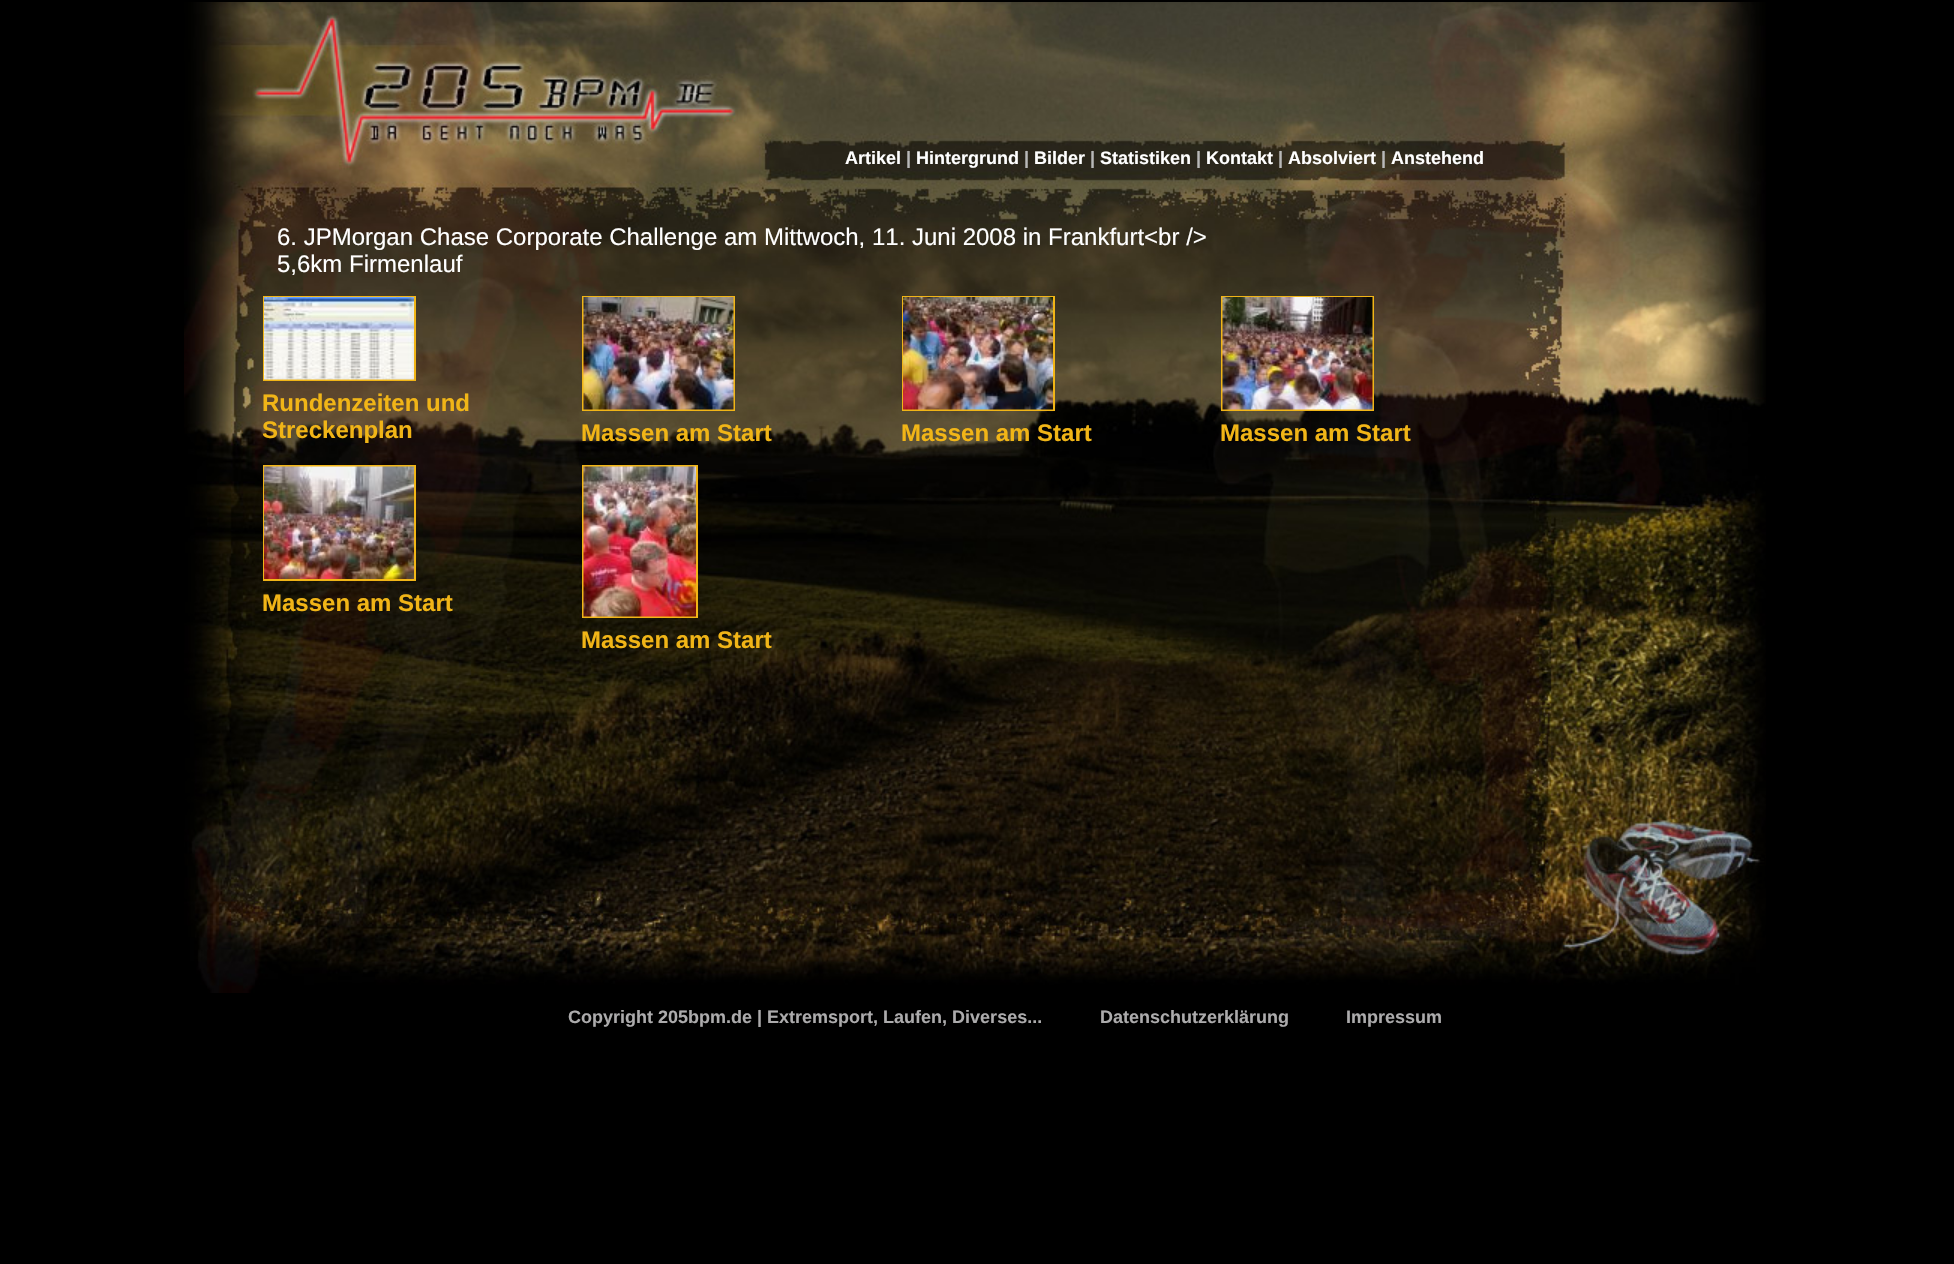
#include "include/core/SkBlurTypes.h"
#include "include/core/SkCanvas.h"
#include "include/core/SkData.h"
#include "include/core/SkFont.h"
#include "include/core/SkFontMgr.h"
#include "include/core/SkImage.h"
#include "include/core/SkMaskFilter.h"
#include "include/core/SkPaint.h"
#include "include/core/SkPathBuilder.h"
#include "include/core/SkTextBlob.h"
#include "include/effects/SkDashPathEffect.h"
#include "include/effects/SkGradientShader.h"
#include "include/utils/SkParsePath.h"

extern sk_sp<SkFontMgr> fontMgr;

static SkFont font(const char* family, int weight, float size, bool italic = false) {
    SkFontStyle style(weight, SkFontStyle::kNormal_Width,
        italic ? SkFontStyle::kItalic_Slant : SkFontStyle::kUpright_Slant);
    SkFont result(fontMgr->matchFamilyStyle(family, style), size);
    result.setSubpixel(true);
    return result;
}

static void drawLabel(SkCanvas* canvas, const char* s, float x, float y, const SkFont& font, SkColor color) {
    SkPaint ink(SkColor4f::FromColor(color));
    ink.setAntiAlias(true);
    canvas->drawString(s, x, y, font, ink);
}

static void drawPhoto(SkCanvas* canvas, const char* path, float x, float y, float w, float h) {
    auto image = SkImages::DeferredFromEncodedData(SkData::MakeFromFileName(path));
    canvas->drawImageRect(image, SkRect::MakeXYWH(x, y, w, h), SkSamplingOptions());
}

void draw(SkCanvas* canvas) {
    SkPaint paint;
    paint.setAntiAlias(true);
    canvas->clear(0xFF000000);
    drawPhoto(canvas, "assets/img1.png", 184, 2, 1582, 991);
    SkFont font1 = font("Liberation Sans", 700, 18);
    drawLabel(canvas, "Artikel", 845, 164, font1, 0xFFFFFFFF);
    drawLabel(canvas, "|", 906, 164, font1, 0xFFB9B9B9);
    drawLabel(canvas, "Hintergrund", 916, 164, font1, 0xFFFFFFFF);
    drawLabel(canvas, "|", 1024, 164, font1, 0xFFB9B9B9);
    drawLabel(canvas, "Bilder", 1034, 164, font1, 0xFFFFFFFF);
    drawLabel(canvas, "|", 1090, 164, font1, 0xFFB9B9B9);
    drawLabel(canvas, "Statistiken", 1100, 164, font1, 0xFFFFFFFF);
    drawLabel(canvas, "|", 1196, 164, font1, 0xFFB9B9B9);
    drawLabel(canvas, "Kontakt", 1206, 164, font1, 0xFFFFFFFF);
    drawLabel(canvas, "|", 1278, 164, font1, 0xFFB9B9B9);
    drawLabel(canvas, "Absolviert", 1288, 164, font1, 0xFFFFFFFF);
    drawLabel(canvas, "|", 1381, 164, font1, 0xFFB9B9B9);
    drawLabel(canvas, "Anstehend", 1391, 164, font1, 0xFFFFFFFF);
    SkFont font2 = font("Liberation Sans", 400, 24);
    drawLabel(canvas, "6. JPMorgan Chase Corporate Challenge am Mittwoch, 11. Juni 2008 in Frankfurt<br />", 277, 245, font2, 0xFFFFFFFF);
    drawLabel(canvas, "5,6km Firmenlauf", 277, 272, font2, 0xFFFFFFFF);
    paint.setStroke(true);
    paint.setStrokeWidth(2);
    paint.setColor(0xFFF1B517);
    canvas->drawRect(SkRect::MakeXYWH(264, 297, 151, 83), paint);
    drawPhoto(canvas, "assets/img2.png", 264, 297, 150, 83);
    SkFont font3 = font("Liberation Sans", 700, 24);
    drawLabel(canvas, "Rundenzeiten und", 262, 411, font3, 0xFFF1B517);
    drawLabel(canvas, "Streckenplan", 262, 438, font3, 0xFFF1B517);
    canvas->drawRect(SkRect::MakeXYWH(583, 297, 151, 113), paint);
    drawPhoto(canvas, "assets/img3.png", 583, 297, 151, 113);
    drawLabel(canvas, "Massen am Start", 581, 441, font3, 0xFFF1B517);
    canvas->drawRect(SkRect::MakeXYWH(903, 297, 151, 113), paint);
    drawPhoto(canvas, "assets/img4.png", 903, 297, 150, 113);
    drawLabel(canvas, "Massen am Start", 901, 441, font3, 0xFFF1B517);
    canvas->drawRect(SkRect::MakeXYWH(1222, 297, 151, 113), paint);
    drawPhoto(canvas, "assets/img5.png", 1222, 297, 151, 113);
    drawLabel(canvas, "Massen am Start", 1220, 441, font3, 0xFFF1B517);
    canvas->drawRect(SkRect::MakeXYWH(264, 466, 151, 114), paint);
    drawPhoto(canvas, "assets/img6.png", 264, 466, 150, 113);
    drawLabel(canvas, "Massen am Start", 262, 611, font3, 0xFFF1B517);
    canvas->drawRect(SkRect::MakeXYWH(583, 466, 114, 151), paint);
    drawPhoto(canvas, "assets/img7.png", 583, 466, 113, 151);
    drawLabel(canvas, "Massen am Start", 581, 648, font3, 0xFFF1B517);
    drawLabel(canvas, "Copyright 205bpm.de | Extremsport, Laufen, Diverses...", 568, 1023, font1, 0xFFACABAC);
    drawLabel(canvas, "Datenschutzerklärung", 1100, 1023, font1, 0xFFACABAC);
    drawLabel(canvas, "Impressum", 1346, 1023, font1, 0xFFACABAC);
}
